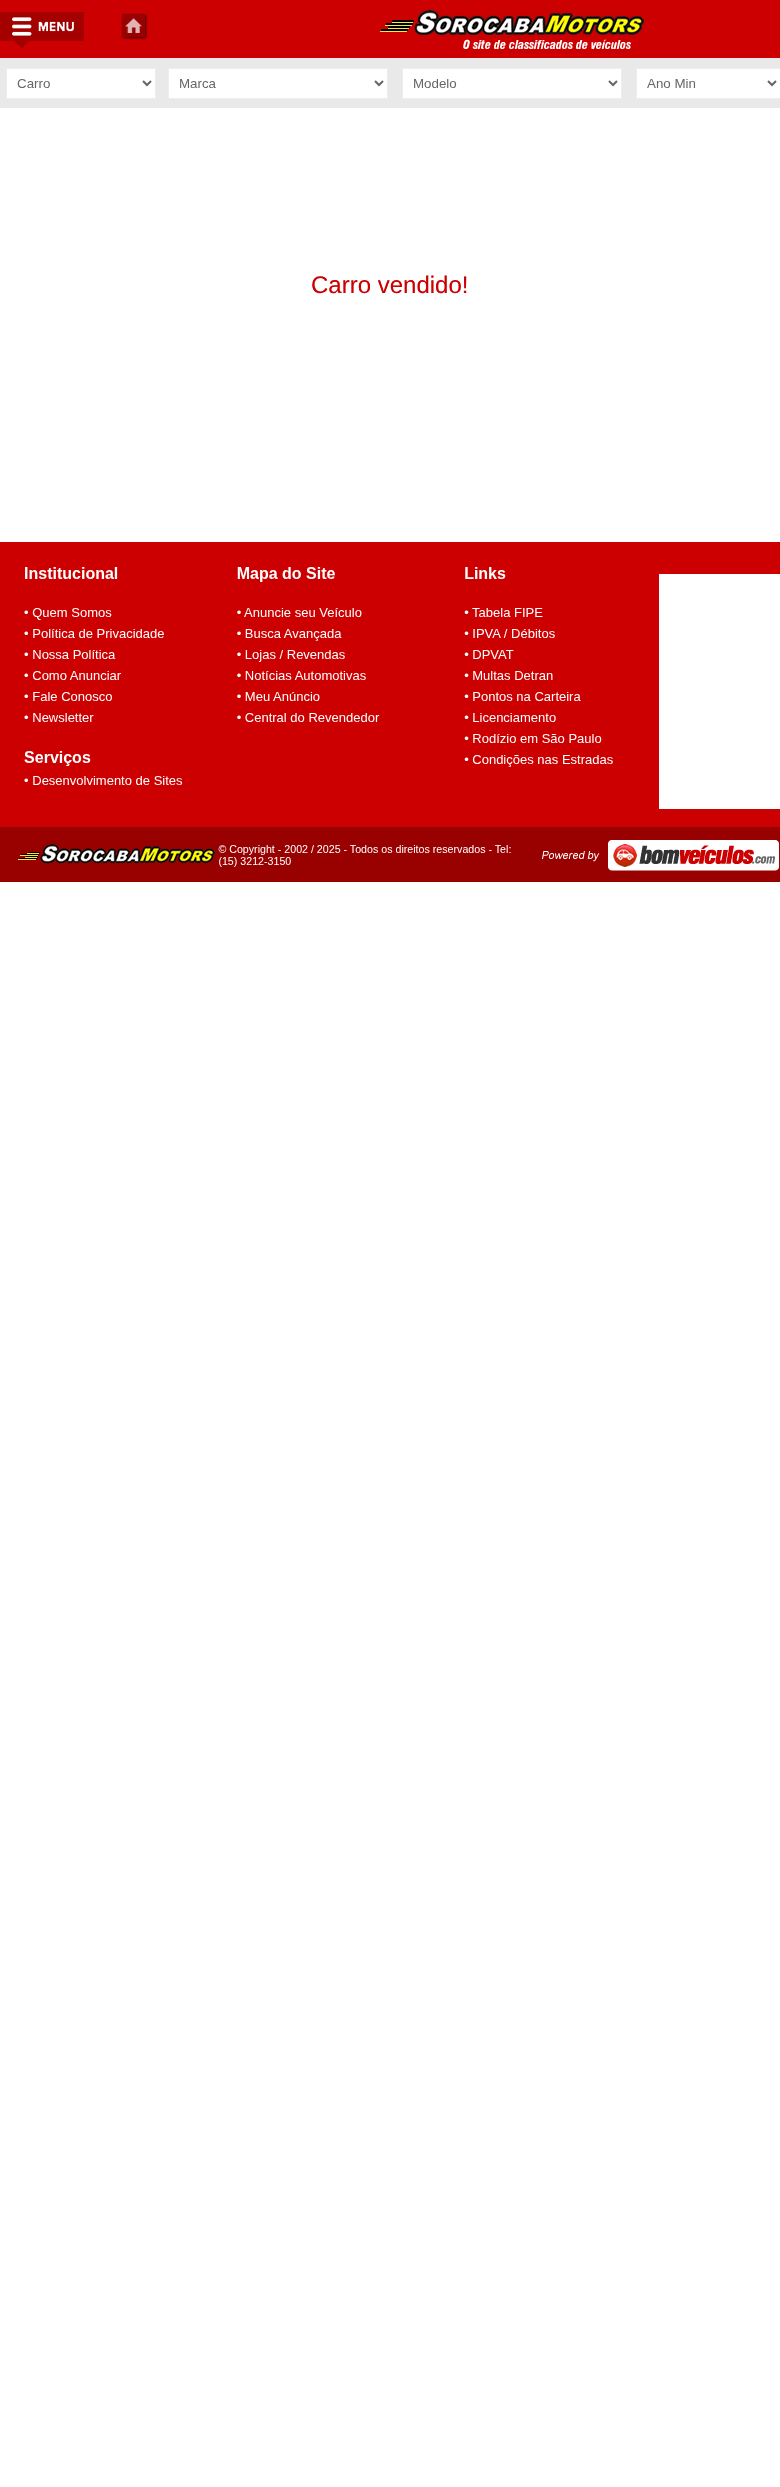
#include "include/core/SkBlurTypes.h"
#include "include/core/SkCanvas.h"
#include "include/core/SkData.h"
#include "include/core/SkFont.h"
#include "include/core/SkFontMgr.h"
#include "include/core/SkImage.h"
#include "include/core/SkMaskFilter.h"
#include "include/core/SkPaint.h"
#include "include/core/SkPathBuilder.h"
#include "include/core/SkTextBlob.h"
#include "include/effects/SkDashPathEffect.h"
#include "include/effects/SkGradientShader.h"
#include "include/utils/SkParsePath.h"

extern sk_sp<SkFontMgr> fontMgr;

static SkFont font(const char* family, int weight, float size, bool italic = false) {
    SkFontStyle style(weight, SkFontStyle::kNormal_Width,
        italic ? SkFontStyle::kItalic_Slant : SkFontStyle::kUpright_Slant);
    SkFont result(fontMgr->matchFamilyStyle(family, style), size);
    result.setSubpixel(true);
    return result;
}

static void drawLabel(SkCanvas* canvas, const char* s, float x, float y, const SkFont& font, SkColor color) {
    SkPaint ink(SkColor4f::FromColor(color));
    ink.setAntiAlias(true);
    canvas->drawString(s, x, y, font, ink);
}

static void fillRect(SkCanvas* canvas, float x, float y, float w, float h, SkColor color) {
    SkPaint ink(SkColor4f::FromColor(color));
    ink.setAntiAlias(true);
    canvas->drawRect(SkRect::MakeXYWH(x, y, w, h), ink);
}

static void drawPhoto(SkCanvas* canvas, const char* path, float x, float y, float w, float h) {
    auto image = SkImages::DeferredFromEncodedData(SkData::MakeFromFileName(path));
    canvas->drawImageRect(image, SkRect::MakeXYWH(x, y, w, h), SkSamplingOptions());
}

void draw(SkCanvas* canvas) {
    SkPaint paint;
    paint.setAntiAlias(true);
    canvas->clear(0xFFFFFFFF);
    drawPhoto(canvas, "assets/img1.png", 0, 0, 780, 108);
    SkFont font1 = font("Liberation Sans", 400, 24);
    drawLabel(canvas, "Carro vendido!", 311, 293, font1, 0xFFCC0000);
    fillRect(canvas, 0, 542, 780, 25, 0xFFCC0000);
    drawPhoto(canvas, "assets/img2.png", 0, 567, 780, 315);
}
